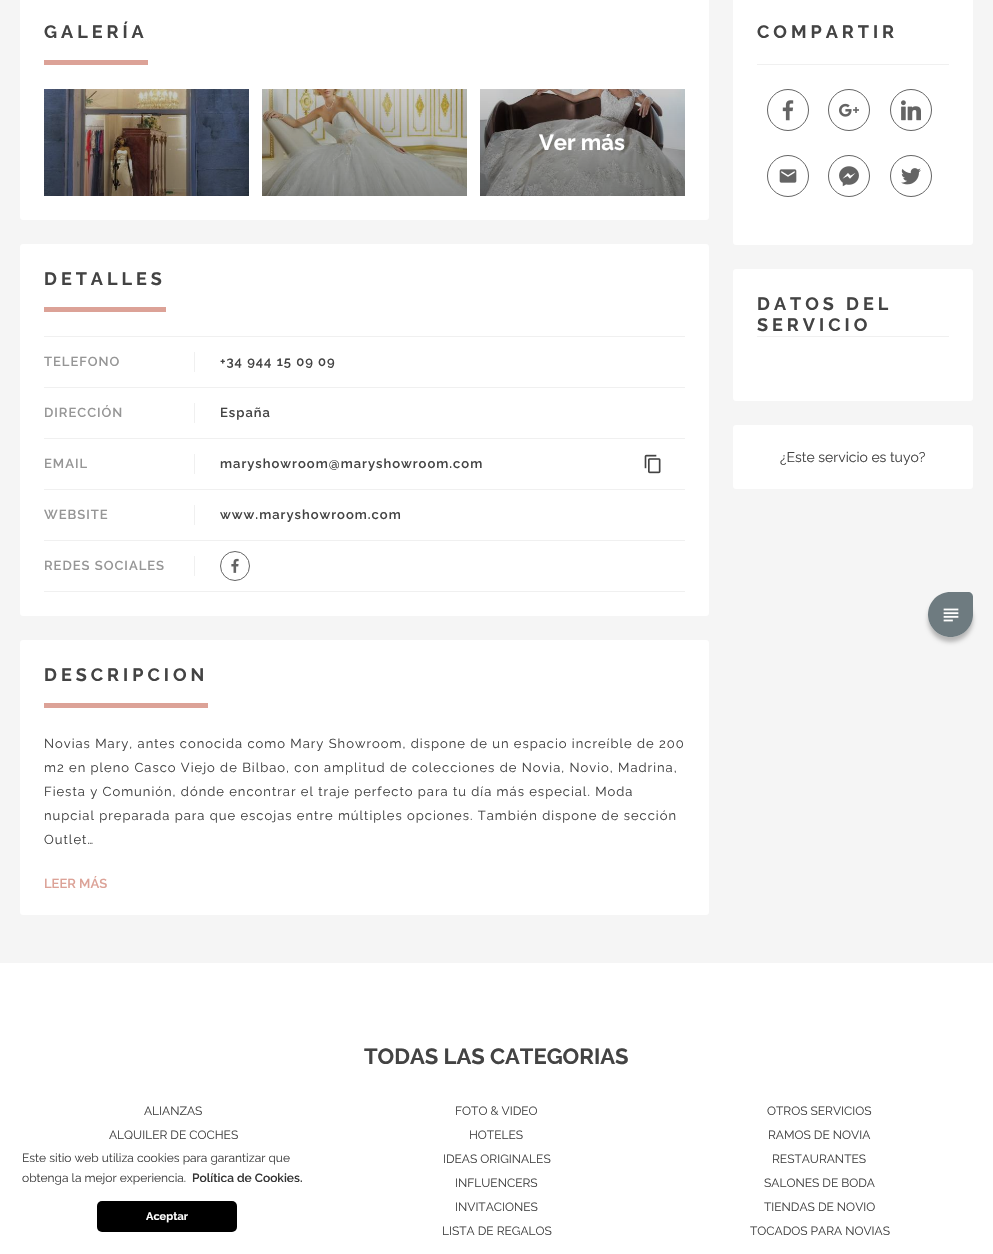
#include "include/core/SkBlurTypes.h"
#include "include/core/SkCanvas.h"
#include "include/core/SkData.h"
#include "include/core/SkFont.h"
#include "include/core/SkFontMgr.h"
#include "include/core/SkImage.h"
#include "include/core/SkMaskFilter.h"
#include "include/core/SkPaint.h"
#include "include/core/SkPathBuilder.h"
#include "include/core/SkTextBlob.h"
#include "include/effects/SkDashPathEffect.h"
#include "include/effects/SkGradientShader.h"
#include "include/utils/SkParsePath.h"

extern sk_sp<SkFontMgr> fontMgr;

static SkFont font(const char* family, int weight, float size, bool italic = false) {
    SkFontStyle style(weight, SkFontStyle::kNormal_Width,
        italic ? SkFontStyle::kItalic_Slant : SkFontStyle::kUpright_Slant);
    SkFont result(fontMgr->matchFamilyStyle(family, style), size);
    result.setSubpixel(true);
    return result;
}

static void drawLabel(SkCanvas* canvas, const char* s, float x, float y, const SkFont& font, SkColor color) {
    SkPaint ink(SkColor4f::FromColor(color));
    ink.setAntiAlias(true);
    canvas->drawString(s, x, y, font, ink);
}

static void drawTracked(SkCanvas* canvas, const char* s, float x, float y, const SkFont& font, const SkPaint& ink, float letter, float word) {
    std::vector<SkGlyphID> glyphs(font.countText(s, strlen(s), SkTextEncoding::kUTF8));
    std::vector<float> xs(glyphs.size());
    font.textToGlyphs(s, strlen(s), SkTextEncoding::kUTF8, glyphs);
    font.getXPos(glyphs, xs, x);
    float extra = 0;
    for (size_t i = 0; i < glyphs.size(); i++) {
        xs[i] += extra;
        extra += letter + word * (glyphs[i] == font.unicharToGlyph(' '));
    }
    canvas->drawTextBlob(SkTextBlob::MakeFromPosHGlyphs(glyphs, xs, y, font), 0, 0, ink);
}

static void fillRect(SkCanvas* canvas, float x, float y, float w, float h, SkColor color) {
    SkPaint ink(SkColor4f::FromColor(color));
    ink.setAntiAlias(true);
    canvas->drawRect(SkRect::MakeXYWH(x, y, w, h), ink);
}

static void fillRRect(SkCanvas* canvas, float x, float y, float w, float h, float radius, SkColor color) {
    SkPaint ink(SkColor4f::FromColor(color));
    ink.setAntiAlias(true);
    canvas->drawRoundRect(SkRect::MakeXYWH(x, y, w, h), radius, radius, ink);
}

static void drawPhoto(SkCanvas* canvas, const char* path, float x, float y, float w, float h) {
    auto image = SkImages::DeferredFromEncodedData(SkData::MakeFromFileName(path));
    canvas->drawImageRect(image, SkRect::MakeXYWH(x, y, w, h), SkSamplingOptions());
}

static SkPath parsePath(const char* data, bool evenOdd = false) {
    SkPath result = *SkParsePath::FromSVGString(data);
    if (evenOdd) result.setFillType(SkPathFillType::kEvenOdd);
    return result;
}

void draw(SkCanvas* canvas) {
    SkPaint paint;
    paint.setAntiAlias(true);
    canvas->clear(0xFFFFFFFF);
    fillRect(canvas, 0, 0, 993, 963, 0xFFF5F5F5);
    fillRRect(canvas, 20, -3, 689, 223, 3, 0xFFFFFFFF);
    fillRect(canvas, 44, 60, 104, 5, 0xFFDCA297);
    SkFont font1 = font("Raleway", 700, 18);
    paint.setColor(0xFF434343);
    drawTracked(canvas, "GALERÍA", 44, 38, font1, paint, 4, 0);
    drawPhoto(canvas, "assets/img1.png", 44, 89, 205, 107);
    drawPhoto(canvas, "assets/img2.png", 262, 89, 205, 107);
    drawPhoto(canvas, "assets/img3.png", 480, 89, 205, 107);
    SkFont font2 = font("Raleway", 700, 22);
    drawLabel(canvas, "Ver más", 539, 150, font2, 0xFFFFFFFF);
    fillRRect(canvas, 20, 244, 689, 372, 3, 0xFFFFFFFF);
    fillRect(canvas, 44, 307, 122, 5, 0xFFDCA297);
    drawTracked(canvas, "DETALLES", 44, 285, font1, paint, 4, 0);
    fillRect(canvas, 44, 336, 641, 1, 0xFFF0F0F0);
    fillRect(canvas, 194, 352, 1, 20, 0xFFF0F0F0);
    SkFont font3 = font("Raleway", 600, 13);
    paint.setColor(0xFF969696);
    drawTracked(canvas, "TELEFONO", 44, 366, font3, paint, 1, 0);
    paint.setColor(0xFF434343);
    drawTracked(canvas, "+34 944 15 09 09", 220, 366, font3, paint, 1, 0);
    fillRect(canvas, 44, 387, 641, 1, 0xFFF0F0F0);
    fillRect(canvas, 194, 403, 1, 20, 0xFFF0F0F0);
    paint.setColor(0xFF969696);
    drawTracked(canvas, "DIRECCIÓN", 44, 417, font3, paint, 1, 0);
    paint.setColor(0xFF434343);
    drawTracked(canvas, "España", 220, 417, font3, paint, 1, 0);
    fillRect(canvas, 44, 438, 641, 1, 0xFFF0F0F0);
    fillRect(canvas, 194, 454, 1, 20, 0xFFF0F0F0);
    paint.setColor(0xFF969696);
    drawTracked(canvas, "EMAIL", 44, 468, font3, paint, 1, 0);
    paint.setColor(0xFF434343);
    drawTracked(canvas, "maryshowroom@maryshowroom.com", 220, 468, font3, paint, 1, 0);
    drawPhoto(canvas, "assets/img4.png", 644, 454, 17, 20);
    fillRect(canvas, 44, 489, 641, 1, 0xFFF0F0F0);
    fillRect(canvas, 194, 505, 1, 20, 0xFFF0F0F0);
    paint.setColor(0xFF969696);
    drawTracked(canvas, "WEBSITE", 44, 519, font3, paint, 1, 0);
    paint.setColor(0xFF434343);
    drawTracked(canvas, "www.maryshowroom.com", 220, 519, font3, paint, 1, 0);
    fillRect(canvas, 44, 540, 641, 1, 0xFFF0F0F0);
    fillRect(canvas, 44, 591, 641, 1, 0xFFF0F0F0);
    fillRect(canvas, 194, 556, 1, 20, 0xFFF0F0F0);
    paint.setColor(0xFF969696);
    drawTracked(canvas, "REDES SOCIALES", 44, 570, font3, paint, 1, 0);
    paint.setStroke(true);
    paint.setStrokeWidth(1);
    paint.setColor(0xFF646464);
    canvas->drawCircle(235, 566, 14.5f, paint);
    drawPhoto(canvas, "assets/img5.png", 231, 558, 8, 15);
    fillRRect(canvas, 20, 640, 689, 275, 3, 0xFFFFFFFF);
    fillRect(canvas, 44, 703, 164, 5, 0xFFDCA297);
    paint.setStroke(false);
    paint.setColor(0xFF434343);
    drawTracked(canvas, "DESCRIPCION", 44, 681, font1, paint, 4, 0);
    SkFont font4 = font("Raleway", 400, 13);
    drawTracked(canvas, "Novias Mary, antes conocida como Mary Showroom, dispone de un espacio increíble de 200", 44, 748, font4, paint, 1, 0);
    drawTracked(canvas, "m2 en pleno Casco Viejo de Bilbao, con amplitud de colecciones de Novia, Novio, Madrina,", 44, 772, font4, paint, 1, 0);
    drawTracked(canvas, "Fiesta y Comunión, dónde encontrar el traje perfecto para tu día más especial. Moda", 44, 796, font4, paint, 1, 0);
    drawTracked(canvas, "nupcial preparada para que escojas entre múltiples opciones. También dispone de sección", 44, 820, font4, paint, 1, 0);
    drawTracked(canvas, "Outlet…", 44, 844, font4, paint, 1, 0);
    drawLabel(canvas, "LEER MÁS", 44, 888, font3, 0xFFDCA297);
    fillRRect(canvas, 733, -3, 240, 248, 3, 0xFFFFFFFF);
    fillRect(canvas, 757, 64, 192, 1, 0xFFF0F0F0);
    drawTracked(canvas, "COMPARTIR", 757, 38, font1, paint, 4, 0);
    paint.setStroke(true);
    paint.setColor(0xFF646464);
    canvas->drawCircle(788, 110, 20.5f, paint);
    drawPhoto(canvas, "assets/img6.png", 782, 100, 12, 21);
    canvas->drawCircle(849, 110, 20.5f, paint);
    drawPhoto(canvas, "assets/img7.png", 839, 103, 20, 14);
    canvas->drawCircle(911, 110, 20.5f, paint);
    drawPhoto(canvas, "assets/img8.png", 901, 100, 20, 21);
    canvas->drawCircle(788, 176, 20.5f, paint);
    drawPhoto(canvas, "assets/img9.png", 779, 169, 18, 14);
    canvas->drawCircle(849, 176, 20.5f, paint);
    drawPhoto(canvas, "assets/img10.png", 839, 166, 20, 21);
    canvas->drawCircle(911, 176, 20.5f, paint);
    drawPhoto(canvas, "assets/img11.png", 901, 168, 20, 17);
    fillRRect(canvas, 733, 269, 240, 132, 3, 0xFFFFFFFF);
    fillRect(canvas, 757, 336, 192, 1, 0xFFF0F0F0);
    paint.setStroke(false);
    paint.setColor(0xFF434343);
    drawTracked(canvas, "DATOS DEL", 757, 310, font1, paint, 4, 0);
    drawTracked(canvas, "SERVICIO", 757, 331, font1, paint, 4, 0);
    fillRRect(canvas, 733, 425, 240, 64, 3, 0xFFFFFFFF);
    SkFont font5 = font("Raleway", 400, 14);
    drawLabel(canvas, "¿Este servicio es tuyo?", 780, 462, font5, 0xFF434343);
    drawLabel(canvas, "TODAS LAS CATEGORIAS", 364, 1064, font2, 0xFF434343);
    SkFont font6 = font("Raleway", 400, 12);
    drawLabel(canvas, "ALIANZAS", 144, 1115, font6, 0xFF434343);
    drawLabel(canvas, "FOTO & VIDEO", 455, 1115, font6, 0xFF434343);
    drawLabel(canvas, "OTROS SERVICIOS", 767, 1115, font6, 0xFF434343);
    drawLabel(canvas, "ALQUILER DE COCHES", 109, 1139, font6, 0xFF434343);
    drawLabel(canvas, "HOTELES", 469, 1139, font6, 0xFF434343);
    drawLabel(canvas, "RAMOS DE NOVIA", 768, 1139, font6, 0xFF434343);
    drawLabel(canvas, "IDEAS ORIGINALES", 443, 1163, font6, 0xFF434343);
    drawLabel(canvas, "RESTAURANTES", 772, 1163, font6, 0xFF434343);
    drawLabel(canvas, "INFLUENCERS", 455, 1187, font6, 0xFF434343);
    drawLabel(canvas, "SALONES DE BODA", 764, 1187, font6, 0xFF434343);
    drawLabel(canvas, "INVITACIONES", 455, 1211, font6, 0xFF434343);
    drawLabel(canvas, "TIENDAS DE NOVIO", 764, 1211, font6, 0xFF434343);
    drawLabel(canvas, "LISTA DE REGALOS", 442, 1235, font6, 0xFF434343);
    drawLabel(canvas, "TOCADOS PARA NOVIAS", 750, 1235, font6, 0xFF434343);
    canvas->save();
    canvas->clipPath(parsePath("M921 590H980V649H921ZM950.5 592H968C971 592 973 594 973 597V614.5C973 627 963 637 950.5 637C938 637 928 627 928 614.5C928 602 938 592 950.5 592Z", true), true);
    paint.setColor(0x42000000);
    paint.setMaskFilter(SkMaskFilter::MakeBlur(kNormal_SkBlurStyle, 2));
    canvas->drawRoundRect(SkRect::MakeXYWH(928, 597, 45, 45), 22.5f, 22.5f, paint);
    paint.setMaskFilter(nullptr);
    canvas->restore();
    paint.setColor(0xB335474E);
    canvas->drawPath(parsePath("M950.5 592H968C971 592 973 594 973 597V614.5C973 627 963 637 950.5 637C938 637 928 627 928 614.5C928 602 938 592 950.5 592Z"), paint);
    drawPhoto(canvas, "assets/img12.png", 943, 608, 16, 14);
    fillRRect(canvas, 12, 1139, 310, 103, 5, 0xFFFFFFFF);
    drawLabel(canvas, "Este sitio web utiliza cookies para garantizar que", 22, 1162, font6, 0xFF434343);
    drawLabel(canvas, "obtenga la mejor experiencia.", 22, 1182, font6, 0xFF434343);
    SkFont font7 = font("Raleway", 600, 12);
    drawLabel(canvas, "Política de Cookies.", 192, 1182, font7, 0xFF333333);
    fillRRect(canvas, 97, 1201, 140, 31, 5, 0xFF000000);
    SkFont font8 = font("Raleway", 700, 11);
    drawLabel(canvas, "Aceptar", 146, 1220, font8, 0xFFFFFFFF);
}
